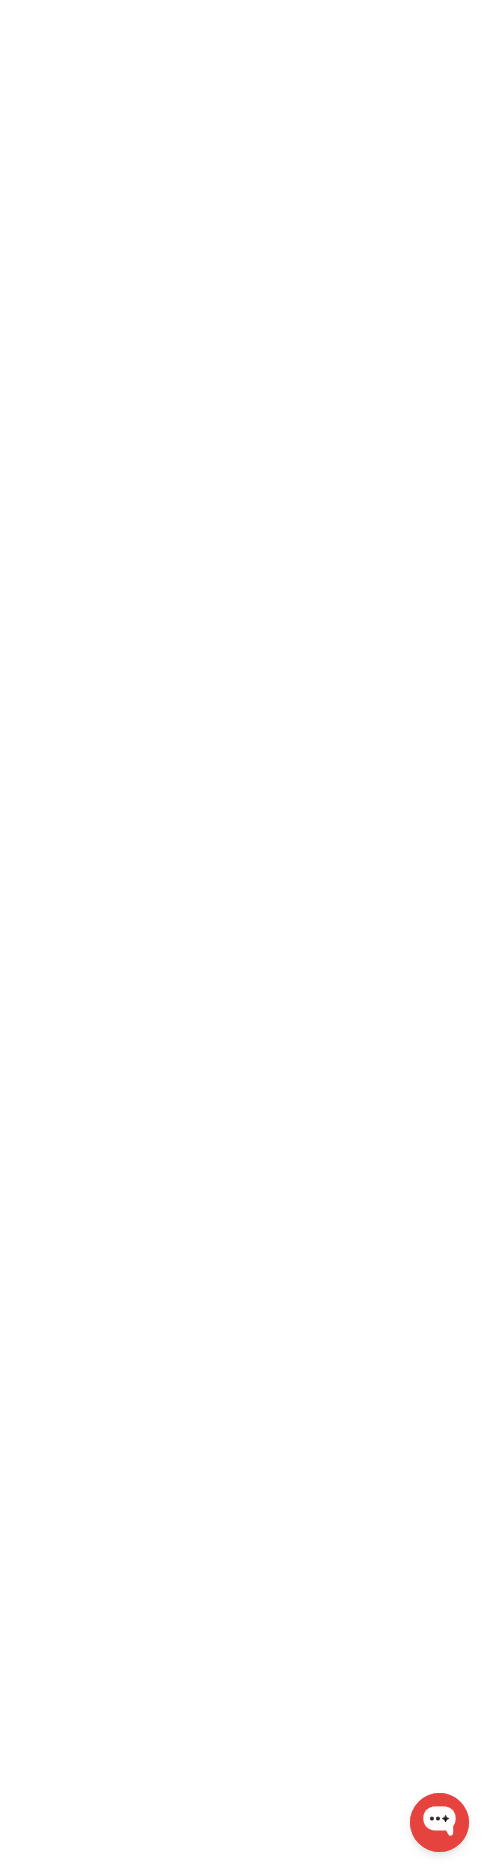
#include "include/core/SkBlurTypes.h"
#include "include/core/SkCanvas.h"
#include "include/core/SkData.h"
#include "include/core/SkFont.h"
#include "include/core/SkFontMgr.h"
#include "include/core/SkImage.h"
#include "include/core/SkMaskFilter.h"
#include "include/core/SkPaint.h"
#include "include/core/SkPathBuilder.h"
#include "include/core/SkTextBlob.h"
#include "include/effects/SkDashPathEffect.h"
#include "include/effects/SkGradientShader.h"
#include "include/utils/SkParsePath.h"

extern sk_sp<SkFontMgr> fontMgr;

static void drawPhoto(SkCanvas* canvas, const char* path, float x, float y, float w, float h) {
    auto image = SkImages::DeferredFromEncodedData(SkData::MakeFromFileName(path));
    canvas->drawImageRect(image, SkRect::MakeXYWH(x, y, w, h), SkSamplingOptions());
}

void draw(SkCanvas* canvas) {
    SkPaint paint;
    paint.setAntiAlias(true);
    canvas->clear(0xFFFFFFFF);
    paint.setColor(0x1A000000);
    paint.setMaskFilter(SkMaskFilter::MakeBlur(kNormal_SkBlurStyle, 3));
    canvas->drawRoundRect(SkRect::MakeXYWH(410, 1797, 59, 59), 29.5f, 29.5f, paint);
    paint.setMaskFilter(nullptr);
    paint.setColor(0xFFE5413E);
    canvas->drawCircle(439.5f, 1822.5f, 29.5f, paint);
    paint.setColor(0xBFE5413E);
    canvas->drawCircle(439.5f, 1822.5f, 29.5f, paint);
    drawPhoto(canvas, "assets/img1.png", 423, 1806, 33, 30);
}
